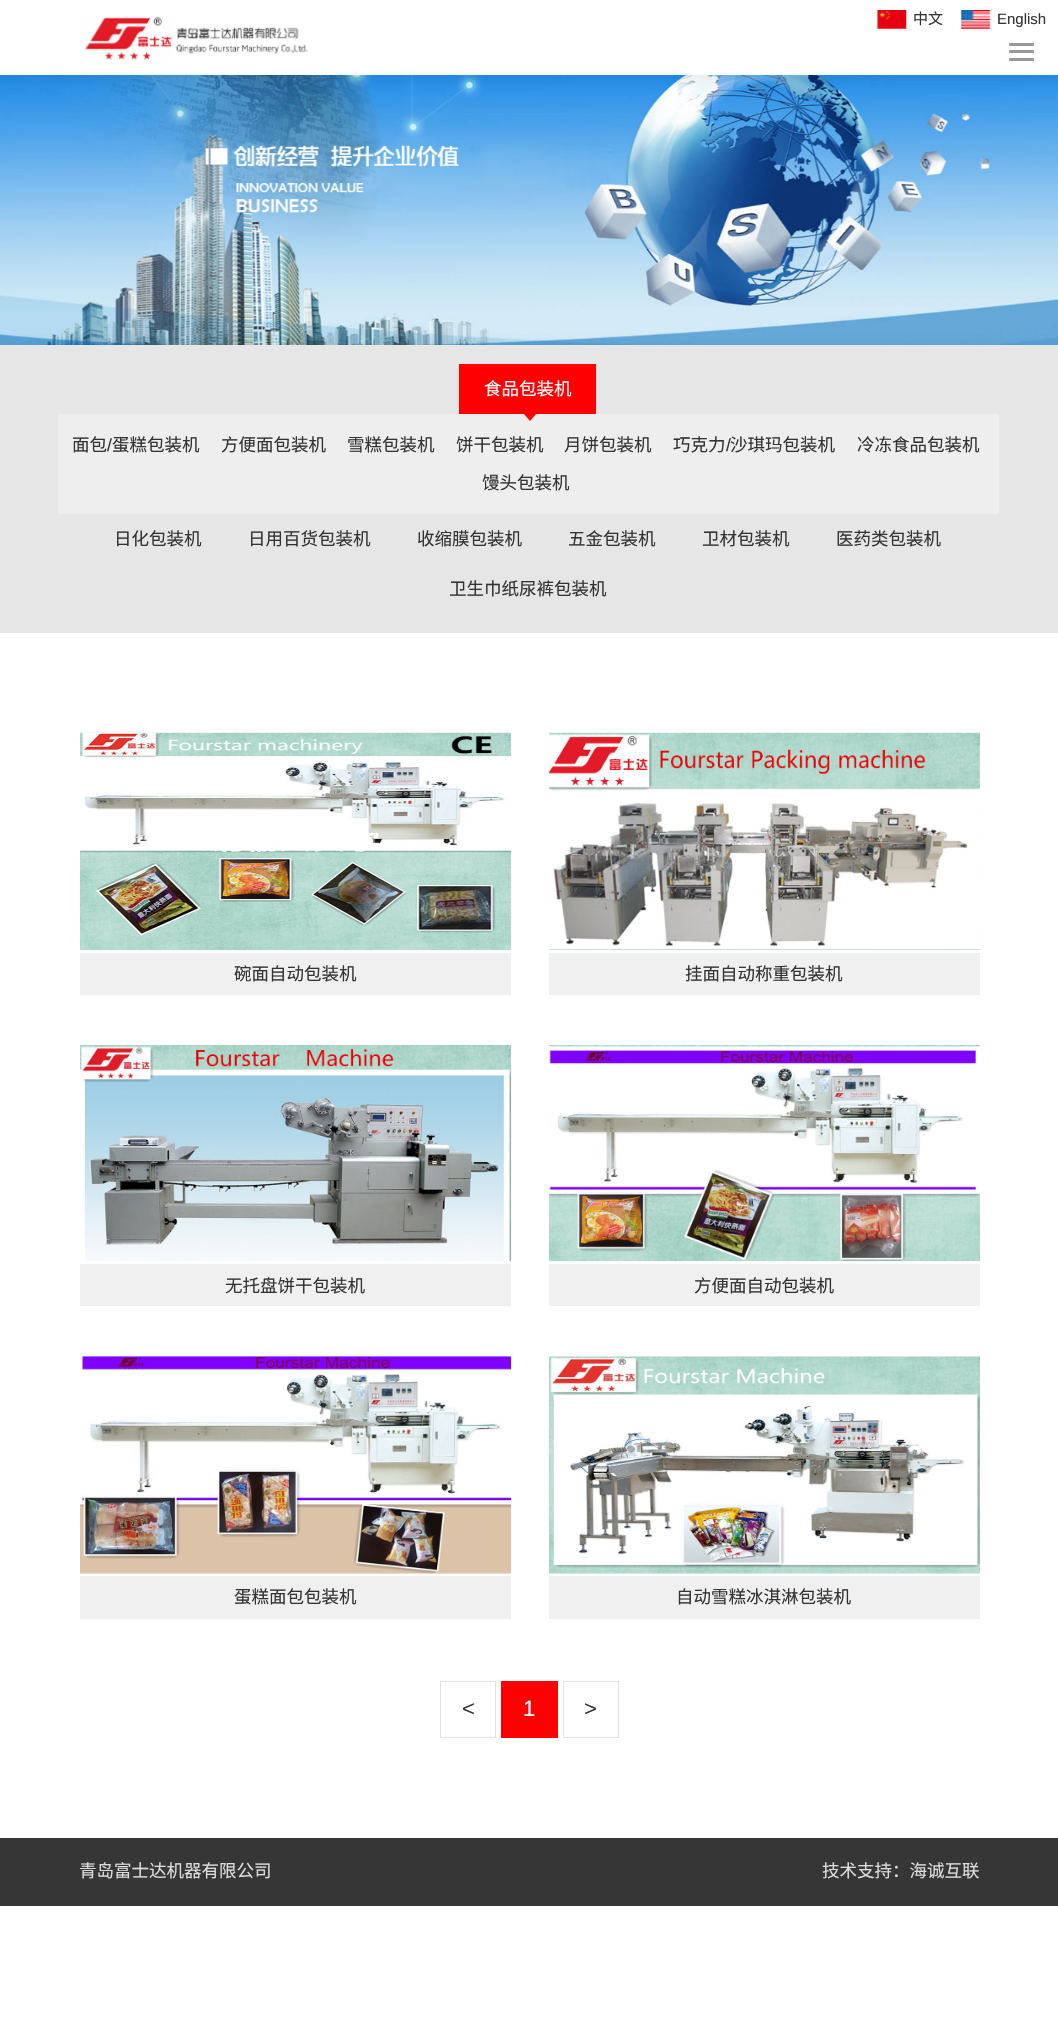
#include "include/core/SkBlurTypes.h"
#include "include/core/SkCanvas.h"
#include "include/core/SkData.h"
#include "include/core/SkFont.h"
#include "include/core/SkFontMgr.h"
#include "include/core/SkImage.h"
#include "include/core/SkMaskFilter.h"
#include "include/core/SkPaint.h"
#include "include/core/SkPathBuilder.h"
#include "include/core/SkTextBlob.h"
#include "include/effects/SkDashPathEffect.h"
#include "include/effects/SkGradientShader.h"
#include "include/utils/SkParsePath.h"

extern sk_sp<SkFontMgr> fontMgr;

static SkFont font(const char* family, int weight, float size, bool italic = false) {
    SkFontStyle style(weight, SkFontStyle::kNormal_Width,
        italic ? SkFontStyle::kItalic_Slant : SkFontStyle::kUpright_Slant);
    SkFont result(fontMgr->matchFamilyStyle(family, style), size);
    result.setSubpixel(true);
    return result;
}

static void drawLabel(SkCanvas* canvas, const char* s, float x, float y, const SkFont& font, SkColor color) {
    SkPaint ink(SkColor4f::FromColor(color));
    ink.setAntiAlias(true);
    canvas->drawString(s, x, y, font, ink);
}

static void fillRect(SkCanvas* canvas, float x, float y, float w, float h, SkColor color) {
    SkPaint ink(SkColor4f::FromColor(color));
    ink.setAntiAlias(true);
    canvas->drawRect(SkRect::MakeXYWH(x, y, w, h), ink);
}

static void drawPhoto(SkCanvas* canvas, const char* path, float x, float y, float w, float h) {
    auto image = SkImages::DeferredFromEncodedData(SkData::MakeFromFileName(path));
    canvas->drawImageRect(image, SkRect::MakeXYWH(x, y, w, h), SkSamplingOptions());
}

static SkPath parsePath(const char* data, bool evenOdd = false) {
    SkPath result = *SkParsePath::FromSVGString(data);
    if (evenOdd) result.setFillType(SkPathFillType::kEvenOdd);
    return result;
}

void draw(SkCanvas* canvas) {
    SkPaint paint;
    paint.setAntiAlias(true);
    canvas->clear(0xFFFFFFFF);
    drawPhoto(canvas, "assets/img1.png", 85, 17, 223, 43);
    drawPhoto(canvas, "assets/img2.png", 877, 10, 30, 19);
    SkFont font1 = font("Noto Sans CJK SC", 400, 15);
    drawLabel(canvas, "中文", 913, 24, font1, 0xFF333333);
    drawPhoto(canvas, "assets/img3.png", 961, 10, 30, 19);
    SkFont font2 = font("Liberation Sans", 400, 15);
    drawLabel(canvas, "English", 997, 24, font2, 0xFF333333);
    fillRect(canvas, 1009, 43, 25, 3, 0xFF999999);
    fillRect(canvas, 1009, 50, 25, 3, 0xFF999999);
    fillRect(canvas, 1009, 58, 25, 3, 0xFF999999);
    drawPhoto(canvas, "assets/img4.png", 0, 75, 1058, 270);
    fillRect(canvas, 0, 345, 1058, 288, 0xFFE6E6E6);
    fillRect(canvas, 459, 364, 137, 50, 0xFFFF0000);
    SkFont font3 = font("Noto Sans CJK SC", 400, 17.5f);
    drawLabel(canvas, "食品包装机", 484, 395, font3, 0xFFFFFFFF);
    fillRect(canvas, 58, 414, 941, 100, 0xFFEEEEEE);
    paint.setColor(0xFFFF0000);
    canvas->drawPath(parsePath("M524 414H536L530 421Z"), paint);
    drawLabel(canvas, "面包", 72, 451, font3, 0xFF333333);
    SkFont font4 = font("Liberation Sans", 400, 17.5f);
    drawLabel(canvas, "/", 107, 451, font4, 0xFF333333);
    drawLabel(canvas, "蛋糕包装机", 112, 451, font3, 0xFF333333);
    drawLabel(canvas, "方便面包装机", 221, 451, font3, 0xFF333333);
    drawLabel(canvas, "雪糕包装机", 347, 451, font3, 0xFF333333);
    drawLabel(canvas, "饼干包装机", 456, 451, font3, 0xFF333333);
    drawLabel(canvas, "月饼包装机", 564, 451, font3, 0xFF333333);
    drawLabel(canvas, "巧克力", 673, 451, font3, 0xFF333333);
    drawLabel(canvas, "/", 726, 451, font4, 0xFF333333);
    drawLabel(canvas, "沙琪玛包装机", 730, 451, font3, 0xFF333333);
    drawLabel(canvas, "冷冻食品包装机", 857, 451, font3, 0xFF333333);
    drawLabel(canvas, "馒头包装机", 482, 489, font3, 0xFF333333);
    drawLabel(canvas, "日化包装机", 114, 545, font3, 0xFF333333);
    drawLabel(canvas, "日用百货包装机", 248, 545, font3, 0xFF333333);
    drawLabel(canvas, "收缩膜包装机", 417, 545, font3, 0xFF333333);
    drawLabel(canvas, "五金包装机", 568, 545, font3, 0xFF333333);
    drawLabel(canvas, "卫材包装机", 702, 545, font3, 0xFF333333);
    drawLabel(canvas, "医药类包装机", 836, 545, font3, 0xFF333333);
    drawLabel(canvas, "卫生巾纸尿裤包装机", 449, 595, font3, 0xFF333333);
    drawPhoto(canvas, "assets/img5.png", 80, 732, 432, 218);
    fillRect(canvas, 80, 953, 431, 42, 0xFFF1F0F0);
    drawLabel(canvas, "碗面自动包装机", 234, 980, font3, 0xFF333333);
    drawPhoto(canvas, "assets/img6.png", 548, 732, 432, 218);
    fillRect(canvas, 549, 953, 431, 42, 0xFFF1F0F0);
    drawLabel(canvas, "挂面自动称重包装机", 685, 980, font3, 0xFF333333);
    drawPhoto(canvas, "assets/img7.png", 80, 1045, 432, 217);
    fillRect(canvas, 80, 1264, 431, 42, 0xFFF1F0F0);
    drawLabel(canvas, "无托盘饼干包装机", 225, 1292, font3, 0xFF333333);
    drawPhoto(canvas, "assets/img8.png", 548, 1045, 432, 217);
    fillRect(canvas, 549, 1264, 431, 42, 0xFFF1F0F0);
    drawLabel(canvas, "方便面自动包装机", 694, 1292, font3, 0xFF333333);
    drawPhoto(canvas, "assets/img9.png", 80, 1356, 432, 218);
    fillRect(canvas, 80, 1576, 431, 43, 0xFFF1F0F0);
    drawLabel(canvas, "蛋糕面包包装机", 234, 1603, font3, 0xFF333333);
    drawPhoto(canvas, "assets/img10.png", 548, 1356, 432, 218);
    fillRect(canvas, 549, 1576, 431, 43, 0xFFF1F0F0);
    drawLabel(canvas, "自动雪糕冰淇淋包装机", 676, 1603, font3, 0xFF333333);
    paint.setStroke(true);
    paint.setStrokeWidth(1);
    paint.setColor(0xFFE2E2E2);
    canvas->drawRect(SkRect::MakeXYWH(440.5f, 1681.5f, 55, 56), paint);
    SkFont font5 = font("Liberation Sans", 400, 22);
    drawLabel(canvas, "<", 462, 1716, font5, 0xFF333333);
    fillRect(canvas, 501, 1681, 57, 57, 0xFFFF0000);
    drawLabel(canvas, "1", 523, 1716, font5, 0xFFFFFFFF);
    canvas->drawRect(SkRect::MakeXYWH(563.5f, 1681.5f, 55, 56), paint);
    drawLabel(canvas, ">", 584, 1716, font5, 0xFF333333);
    fillRect(canvas, 0, 1838, 1058, 68, 0xFF363636);
    drawLabel(canvas, "青岛富士达机器有限公司", 79, 1877, font3, 0xFFDDDDDD);
    drawLabel(canvas, "技术支持：海诚互联", 822, 1877, font3, 0xFFDDDDDD);
}
